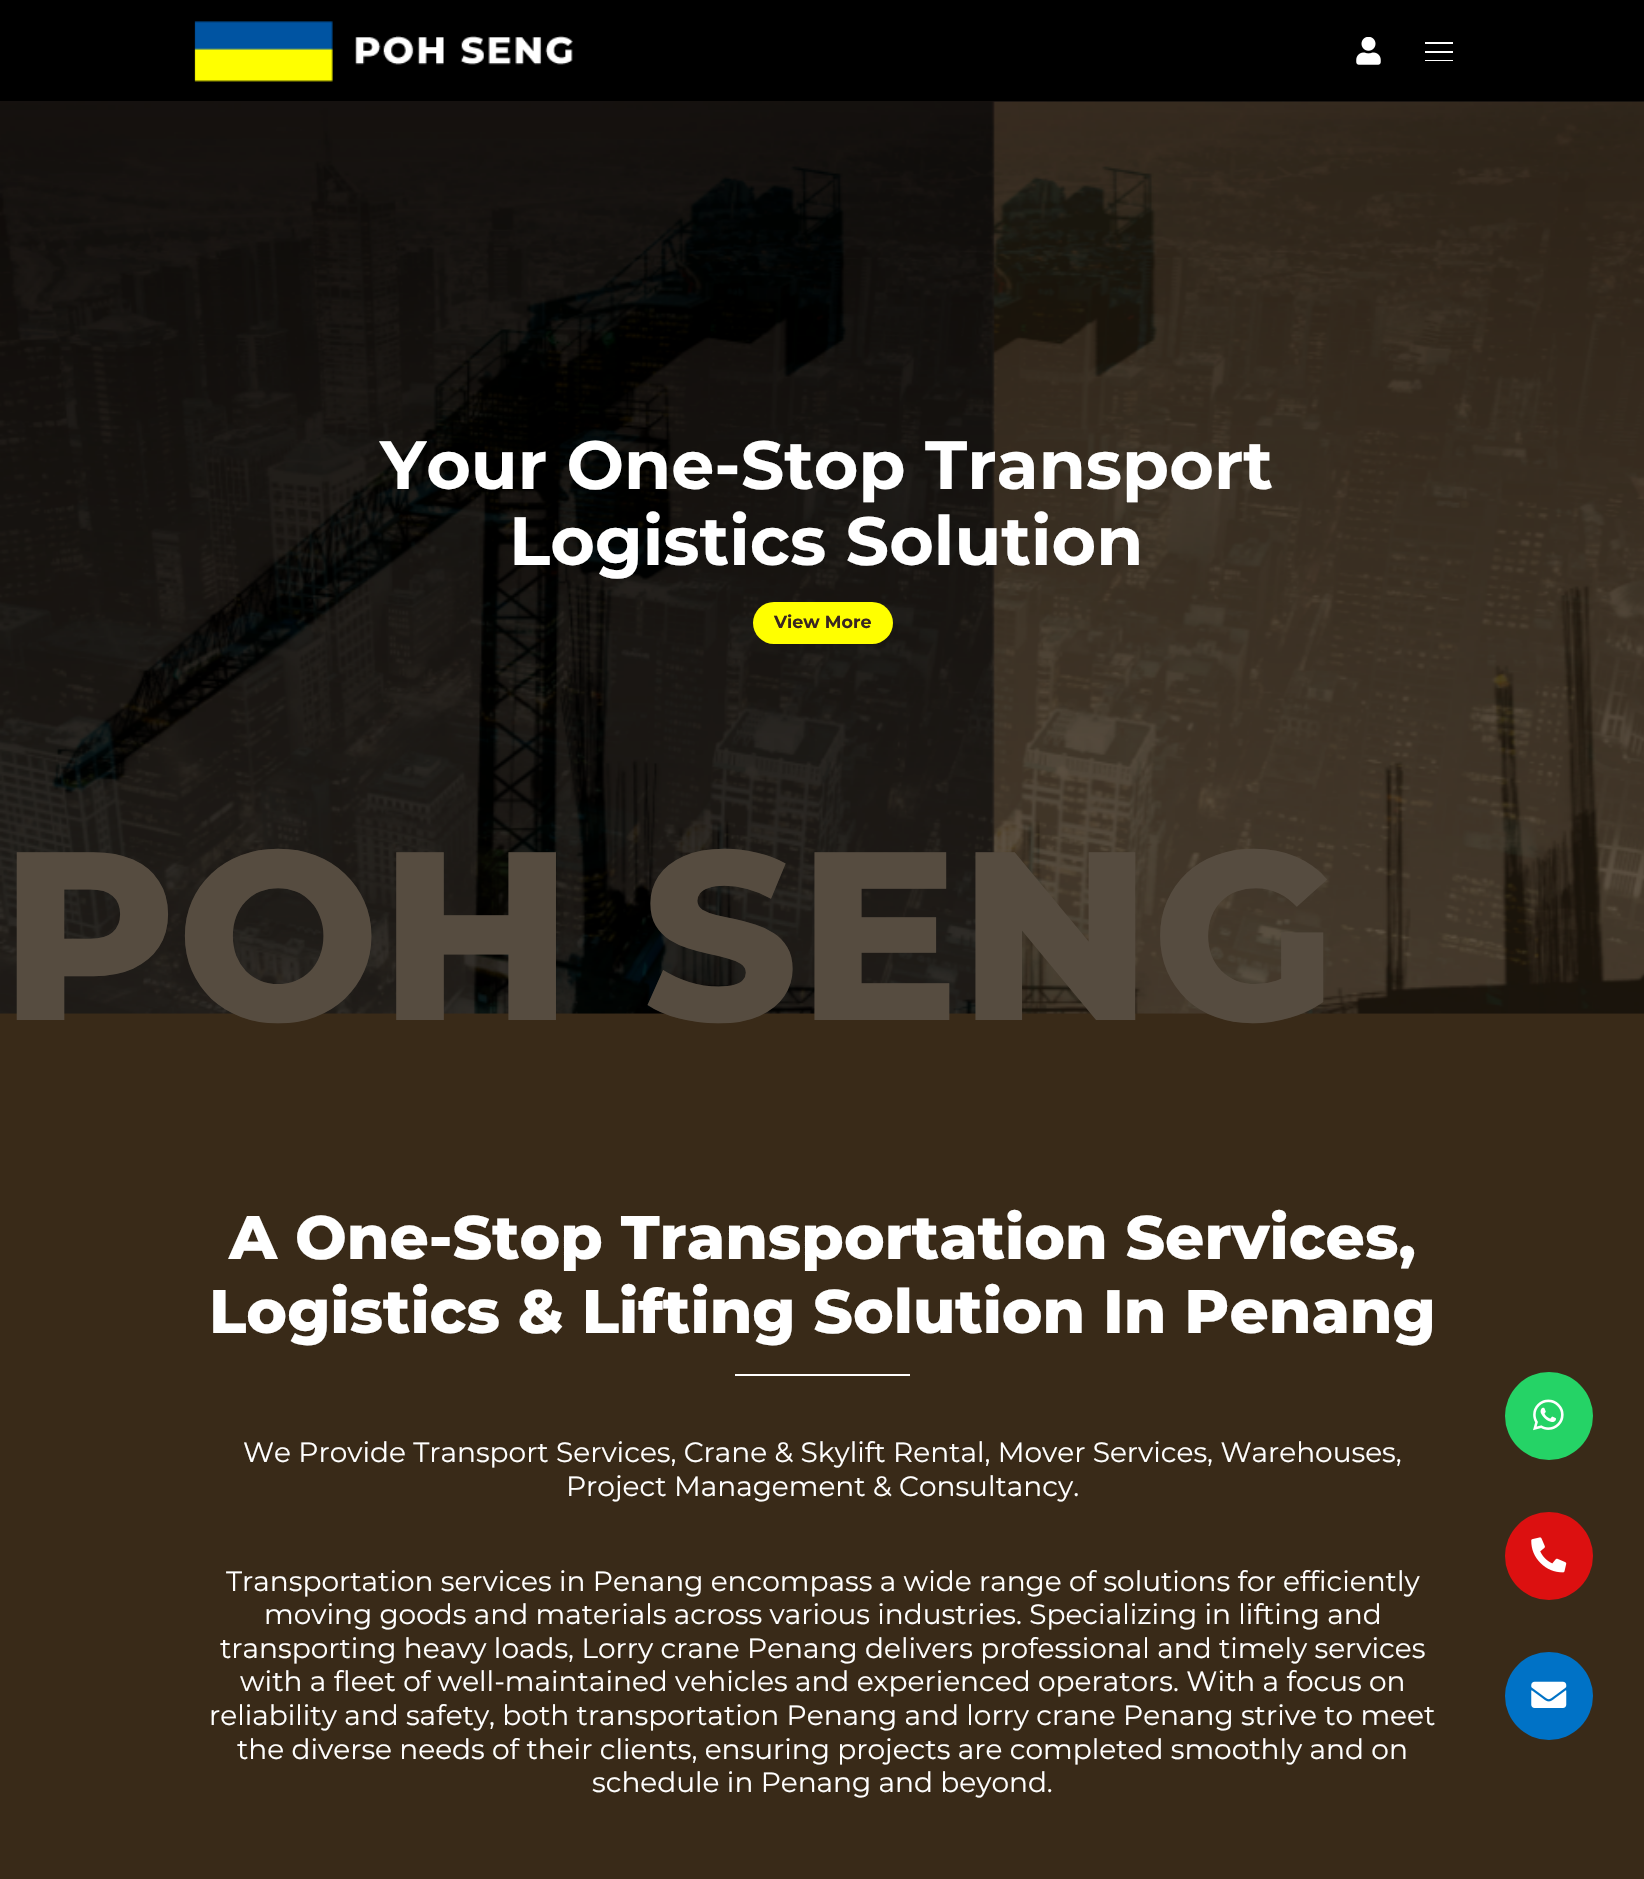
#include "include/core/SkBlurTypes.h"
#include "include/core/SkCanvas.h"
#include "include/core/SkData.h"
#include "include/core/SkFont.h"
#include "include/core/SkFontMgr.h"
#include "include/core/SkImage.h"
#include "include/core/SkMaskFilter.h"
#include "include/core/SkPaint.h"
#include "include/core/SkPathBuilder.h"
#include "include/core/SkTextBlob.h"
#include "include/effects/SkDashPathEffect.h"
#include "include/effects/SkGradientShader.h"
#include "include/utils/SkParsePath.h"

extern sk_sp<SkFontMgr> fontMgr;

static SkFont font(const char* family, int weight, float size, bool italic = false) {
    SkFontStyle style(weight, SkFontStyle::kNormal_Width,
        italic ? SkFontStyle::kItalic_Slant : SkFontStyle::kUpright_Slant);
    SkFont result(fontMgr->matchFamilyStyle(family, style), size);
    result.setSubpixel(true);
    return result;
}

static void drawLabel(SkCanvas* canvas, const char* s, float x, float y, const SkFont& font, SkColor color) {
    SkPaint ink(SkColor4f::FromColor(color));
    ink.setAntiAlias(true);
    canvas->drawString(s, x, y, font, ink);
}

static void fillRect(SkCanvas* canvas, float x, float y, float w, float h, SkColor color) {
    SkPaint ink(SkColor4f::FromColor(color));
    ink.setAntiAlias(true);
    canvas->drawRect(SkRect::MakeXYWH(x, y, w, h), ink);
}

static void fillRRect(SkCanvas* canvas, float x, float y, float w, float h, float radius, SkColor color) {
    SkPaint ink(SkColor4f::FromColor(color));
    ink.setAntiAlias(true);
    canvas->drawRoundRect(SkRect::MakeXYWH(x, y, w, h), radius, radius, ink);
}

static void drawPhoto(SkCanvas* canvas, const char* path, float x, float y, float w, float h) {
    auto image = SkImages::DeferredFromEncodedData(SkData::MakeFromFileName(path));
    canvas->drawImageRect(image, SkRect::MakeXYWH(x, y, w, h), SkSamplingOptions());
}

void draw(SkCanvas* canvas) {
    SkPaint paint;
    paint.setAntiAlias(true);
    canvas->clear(0xFF392A18);
    fillRect(canvas, 0, 0, 1644, 102, 0xFF000000);
    drawPhoto(canvas, "assets/img1.png", 194, 21, 379, 61);
    drawPhoto(canvas, "assets/img2.png", 1356, 37, 25, 28);
    fillRect(canvas, 1425, 42, 28, 2, 0xFFFFFFFF);
    fillRect(canvas, 1425, 51, 28, 2, 0xFFFFFFFF);
    fillRect(canvas, 1425, 60, 28, 1, 0xFFFFFFFF);
    drawPhoto(canvas, "assets/img3.png", 0, 101, 1644, 913);
    SkFont font1 = font("Montserrat", 700, 68.25f);
    drawLabel(canvas, "Your One-Stop Transport", 380, 489, font1, 0xFFFFFFFF);
    drawLabel(canvas, "Logistics Solution", 509, 565, font1, 0xFFFFFFFF);
    fillRRect(canvas, 753, 602, 140, 42, 21, 0xFFFFFF00);
    SkFont font2 = font("Montserrat", 700, 17.5f);
    drawLabel(canvas, "View More", 774, 628, font2, 0xFF392621);
    SkFont font3 = font("Montserrat", 800, 239.75f);
    drawLabel(canvas, "POH SENG", 0, 1020, font3, 0xFF564C40);
    SkFont font4 = font("Montserrat", 800, 61.25f);
    drawLabel(canvas, "A One-Stop Transportation Services,", 229, 1259, font4, 0xFFFFFFFF);
    drawLabel(canvas, "Logistics & Lifting Solution In Penang", 209, 1333, font4, 0xFFFFFFFF);
    fillRect(canvas, 735, 1374, 175, 2, 0xFFFFFFFF);
    SkFont font5 = font("Montserrat", 400, 28);
    drawLabel(canvas, "We Provide Transport Services, Crane & Skylift Rental, Mover Services, Warehouses,", 243, 1462, font5, 0xFFFFFFFF);
    drawLabel(canvas, "Project Management & Consultancy.", 566, 1496, font5, 0xFFFFFFFF);
    drawLabel(canvas, "Transportation services in Penang encompass a wide range of solutions for efficiently", 226, 1591, font5, 0xFFFFFFFF);
    drawLabel(canvas, "moving goods and materials across various industries. Specializing in lifting and", 264, 1624, font5, 0xFFFFFFFF);
    drawLabel(canvas, "transporting heavy loads, Lorry crane Penang delivers professional and timely services", 220, 1658, font5, 0xFFFFFFFF);
    drawLabel(canvas, "with a fleet of well-maintained vehicles and experienced operators. With a focus on", 240, 1691, font5, 0xFFFFFFFF);
    drawLabel(canvas, "reliability and safety, both transportation Penang and lorry crane Penang strive to meet", 209, 1725, font5, 0xFFFFFFFF);
    drawLabel(canvas, "the diverse needs of their clients, ensuring projects are completed smoothly and on", 237, 1759, font5, 0xFFFFFFFF);
    drawLabel(canvas, "schedule in Penang and beyond.", 592, 1792, font5, 0xFFFFFFFF);
    paint.setColor(0xFF25D366);
    canvas->drawCircle(1549, 1416, 44, paint);
    drawPhoto(canvas, "assets/img4.png", 1533, 1399, 31, 32);
    paint.setColor(0xFFDC1010);
    canvas->drawCircle(1549, 1556, 44, paint);
    drawPhoto(canvas, "assets/img5.png", 1531, 1537, 36, 36);
    paint.setColor(0xFF0072C6);
    canvas->drawCircle(1549, 1696, 44, paint);
    drawPhoto(canvas, "assets/img6.png", 1531, 1681, 36, 27);
}
